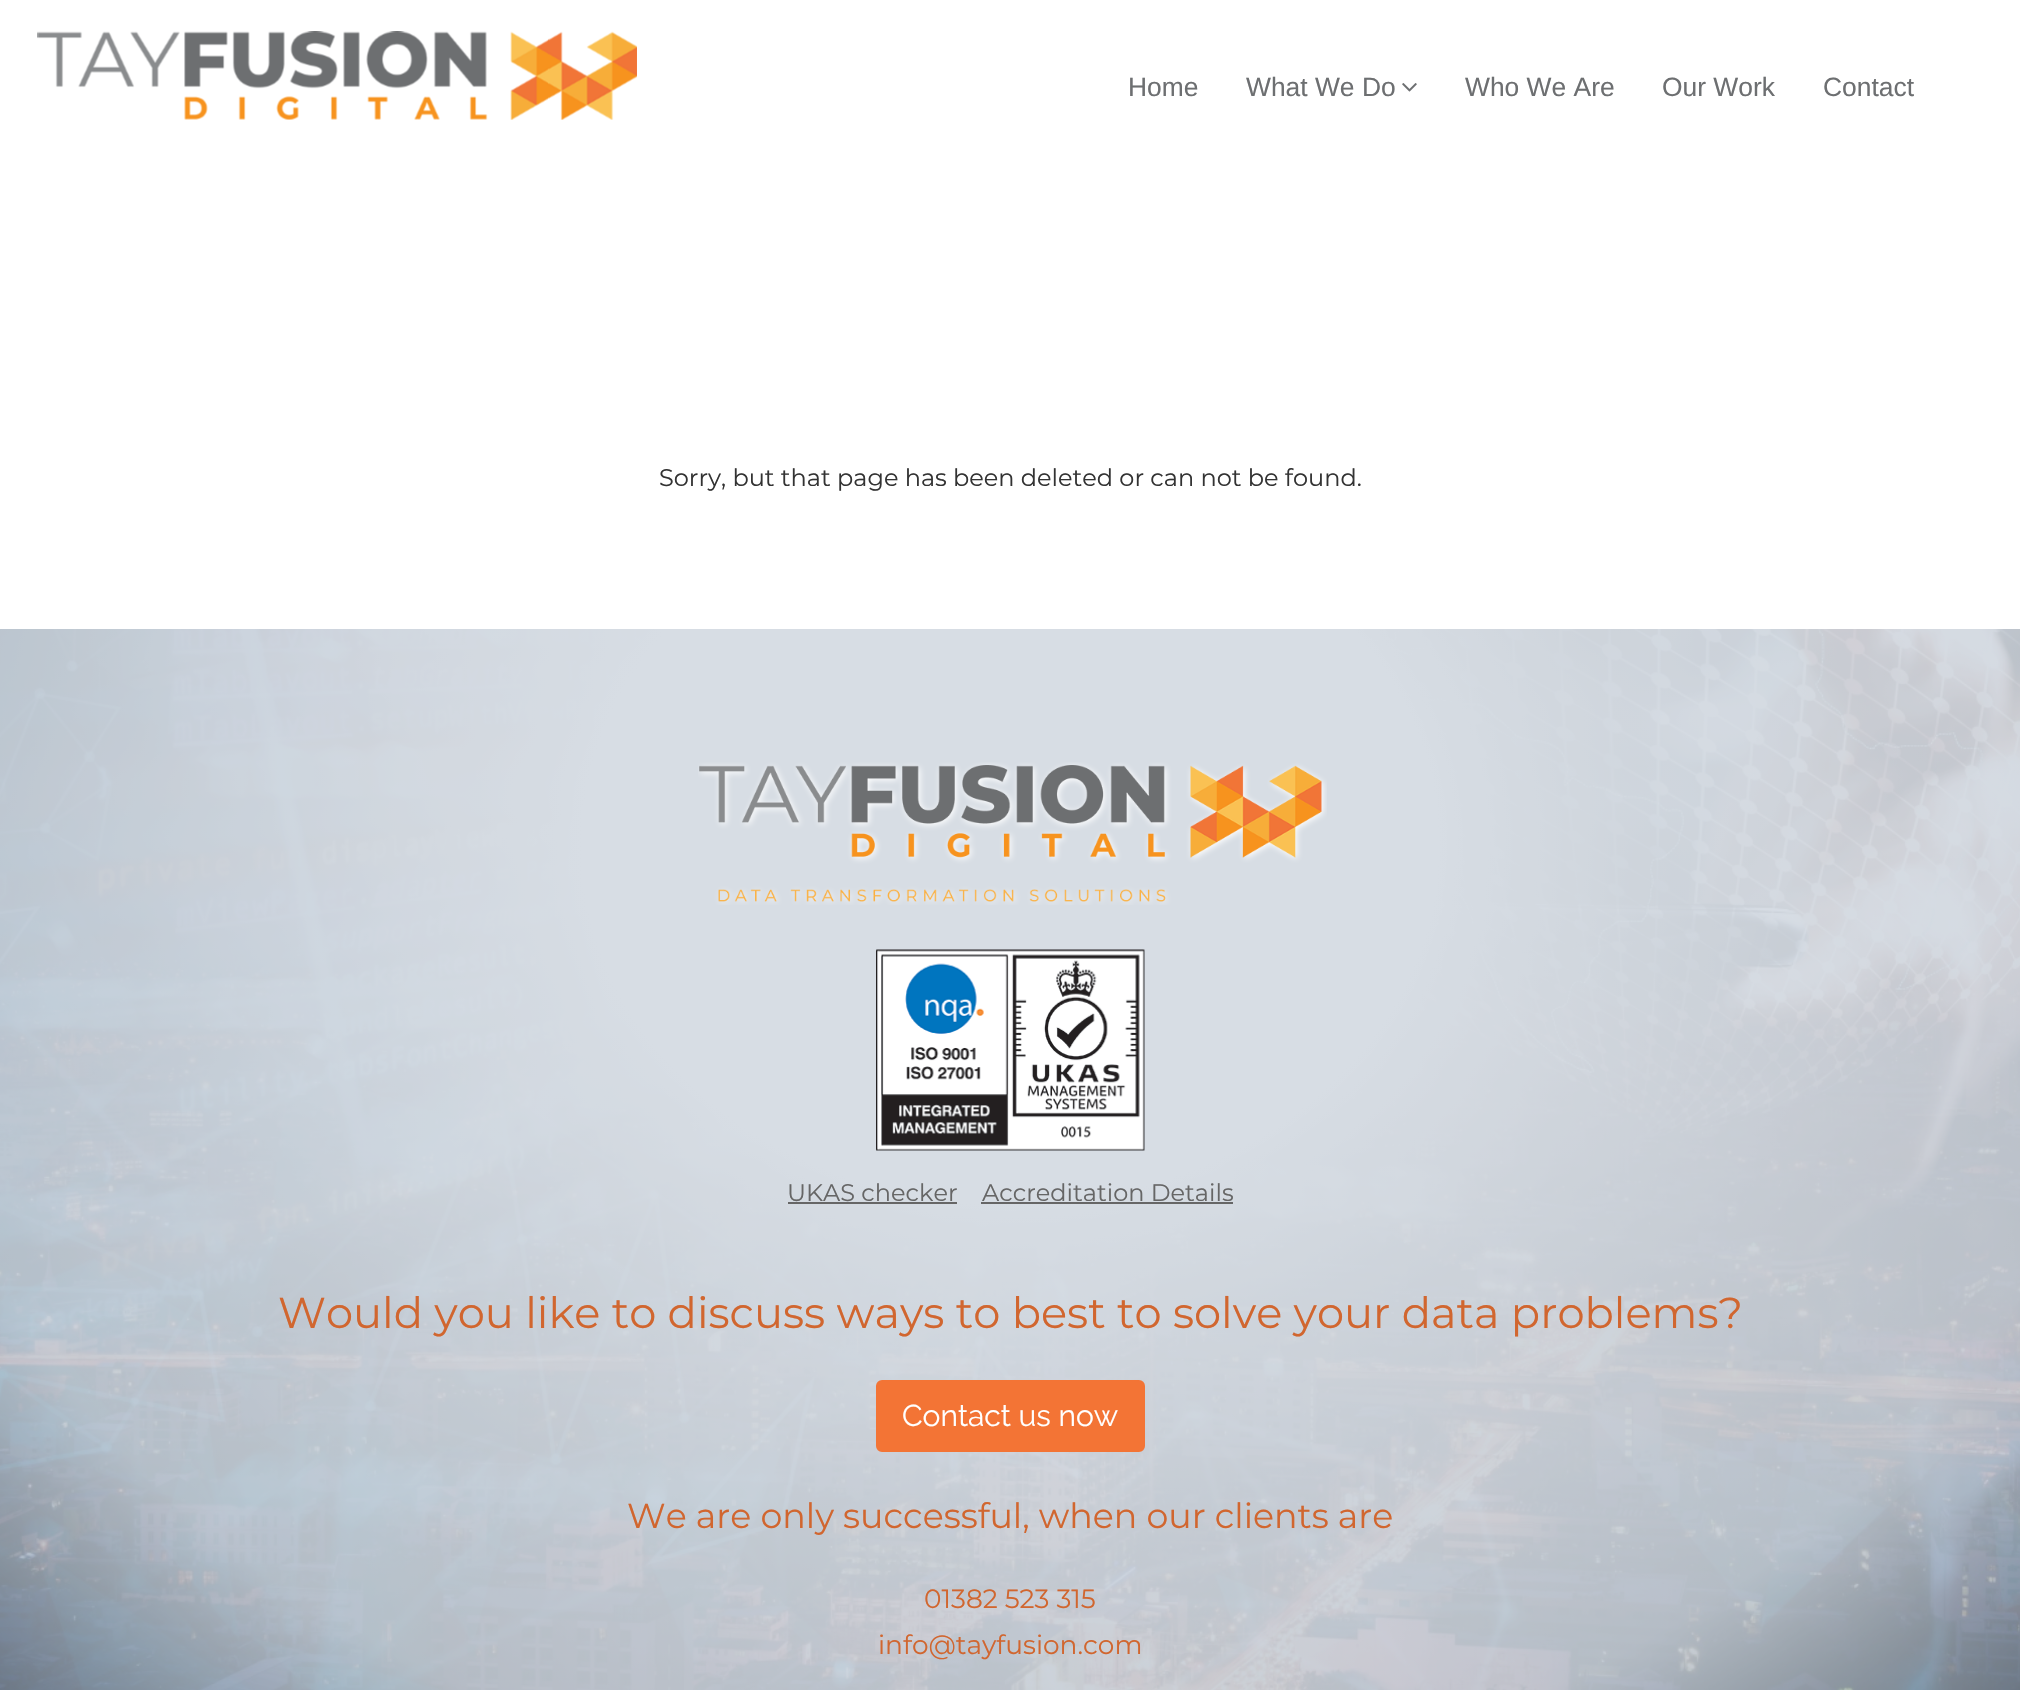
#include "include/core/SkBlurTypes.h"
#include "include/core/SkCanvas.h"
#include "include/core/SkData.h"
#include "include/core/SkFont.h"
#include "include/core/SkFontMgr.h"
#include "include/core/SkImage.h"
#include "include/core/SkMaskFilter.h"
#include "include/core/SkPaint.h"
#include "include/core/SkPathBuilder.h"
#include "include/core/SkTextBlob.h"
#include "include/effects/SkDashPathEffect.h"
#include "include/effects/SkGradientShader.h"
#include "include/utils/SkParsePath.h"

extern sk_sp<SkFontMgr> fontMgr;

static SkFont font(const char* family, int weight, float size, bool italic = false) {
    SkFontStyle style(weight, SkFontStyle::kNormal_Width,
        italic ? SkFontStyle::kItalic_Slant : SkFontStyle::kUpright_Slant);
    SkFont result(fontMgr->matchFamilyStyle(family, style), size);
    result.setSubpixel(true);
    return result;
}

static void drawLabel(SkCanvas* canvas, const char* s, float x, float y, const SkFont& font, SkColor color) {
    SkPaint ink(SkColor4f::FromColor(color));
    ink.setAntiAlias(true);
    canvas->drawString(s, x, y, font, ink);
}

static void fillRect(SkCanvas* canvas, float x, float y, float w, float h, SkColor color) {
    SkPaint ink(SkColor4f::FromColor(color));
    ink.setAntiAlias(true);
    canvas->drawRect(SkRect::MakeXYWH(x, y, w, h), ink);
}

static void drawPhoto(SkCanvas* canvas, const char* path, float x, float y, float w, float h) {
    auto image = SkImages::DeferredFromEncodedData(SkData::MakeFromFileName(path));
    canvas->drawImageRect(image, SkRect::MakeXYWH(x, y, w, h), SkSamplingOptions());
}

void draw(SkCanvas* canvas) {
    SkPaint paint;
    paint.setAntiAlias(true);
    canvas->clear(0xFFFFFFFF);
    drawPhoto(canvas, "assets/img1.png", 37, 31, 600, 89);
    SkFont font1 = font("Liberation Sans", 400, 26.4f);
    drawLabel(canvas, "Home", 1128, 96, font1, 0xFF6D6F71);
    drawLabel(canvas, "What We Do", 1246, 96, font1, 0xFF6D6F71);
    drawPhoto(canvas, "assets/img2.png", 1402, 83, 15, 9);
    drawLabel(canvas, "Who We Are", 1465, 96, font1, 0xFF6D6F71);
    drawLabel(canvas, "Our Work", 1662, 96, font1, 0xFF6D6F71);
    drawLabel(canvas, "Contact", 1823, 96, font1, 0xFF6D6F71);
    drawPhoto(canvas, "assets/img3.png", 0, 629, 2020, 1061);
    SkFont font2 = font("Montserrat", 400, 24);
    drawLabel(canvas, "Sorry, but that page has been deleted or can not be found.", 659, 486, font2, 0xFF333333);
    fillRect(canvas, 0, 629, 2020, 1061, 0x4D7B90A7);
    drawPhoto(canvas, "assets/img4.png", 698, 762, 629, 143);
    drawPhoto(canvas, "assets/img5.png", 876, 949, 269, 202);
    drawLabel(canvas, "UKAS checker", 787, 1201, font2, 0xFF666666);
    fillRect(canvas, 788, 1202, 169, 2, 0xFF666666);
    drawLabel(canvas, "Accreditation Details", 982, 1201, font2, 0xFF666666);
    fillRect(canvas, 981, 1202, 252, 2, 0xFF666666);
    SkFont font3 = font("Montserrat", 400, 43.2f);
    drawLabel(canvas, "Would you like to discuss ways to best to solve your data problems?", 278, 1328, font3, 0xFFD1662F);
    paint.setColor(0xFFF37435);
    canvas->drawRoundRect(SkRect::MakeXYWH(877, 1381, 267, 70), 5, 5, paint);
    paint.setStroke(true);
    paint.setStrokeWidth(2);
    canvas->drawRoundRect(SkRect::MakeXYWH(877, 1381, 267, 70), 5, 5, paint);
    SkFont font4 = font("Raleway", 400, 30);
    drawLabel(canvas, "Contact us now", 902, 1426, font4, 0xFFFFFFFF);
    SkFont font5 = font("Montserrat", 400, 34.8f);
    drawLabel(canvas, "We are only successful, when our clients are", 627, 1528, font5, 0xFFD1662F);
    SkFont font6 = font("Montserrat", 400, 26.4f);
    drawLabel(canvas, "01382 523 315", 924, 1608, font6, 0xFFD1662F);
    drawLabel(canvas, "info@tayfusion.com", 878, 1654, font6, 0xFFD1662F);
}
